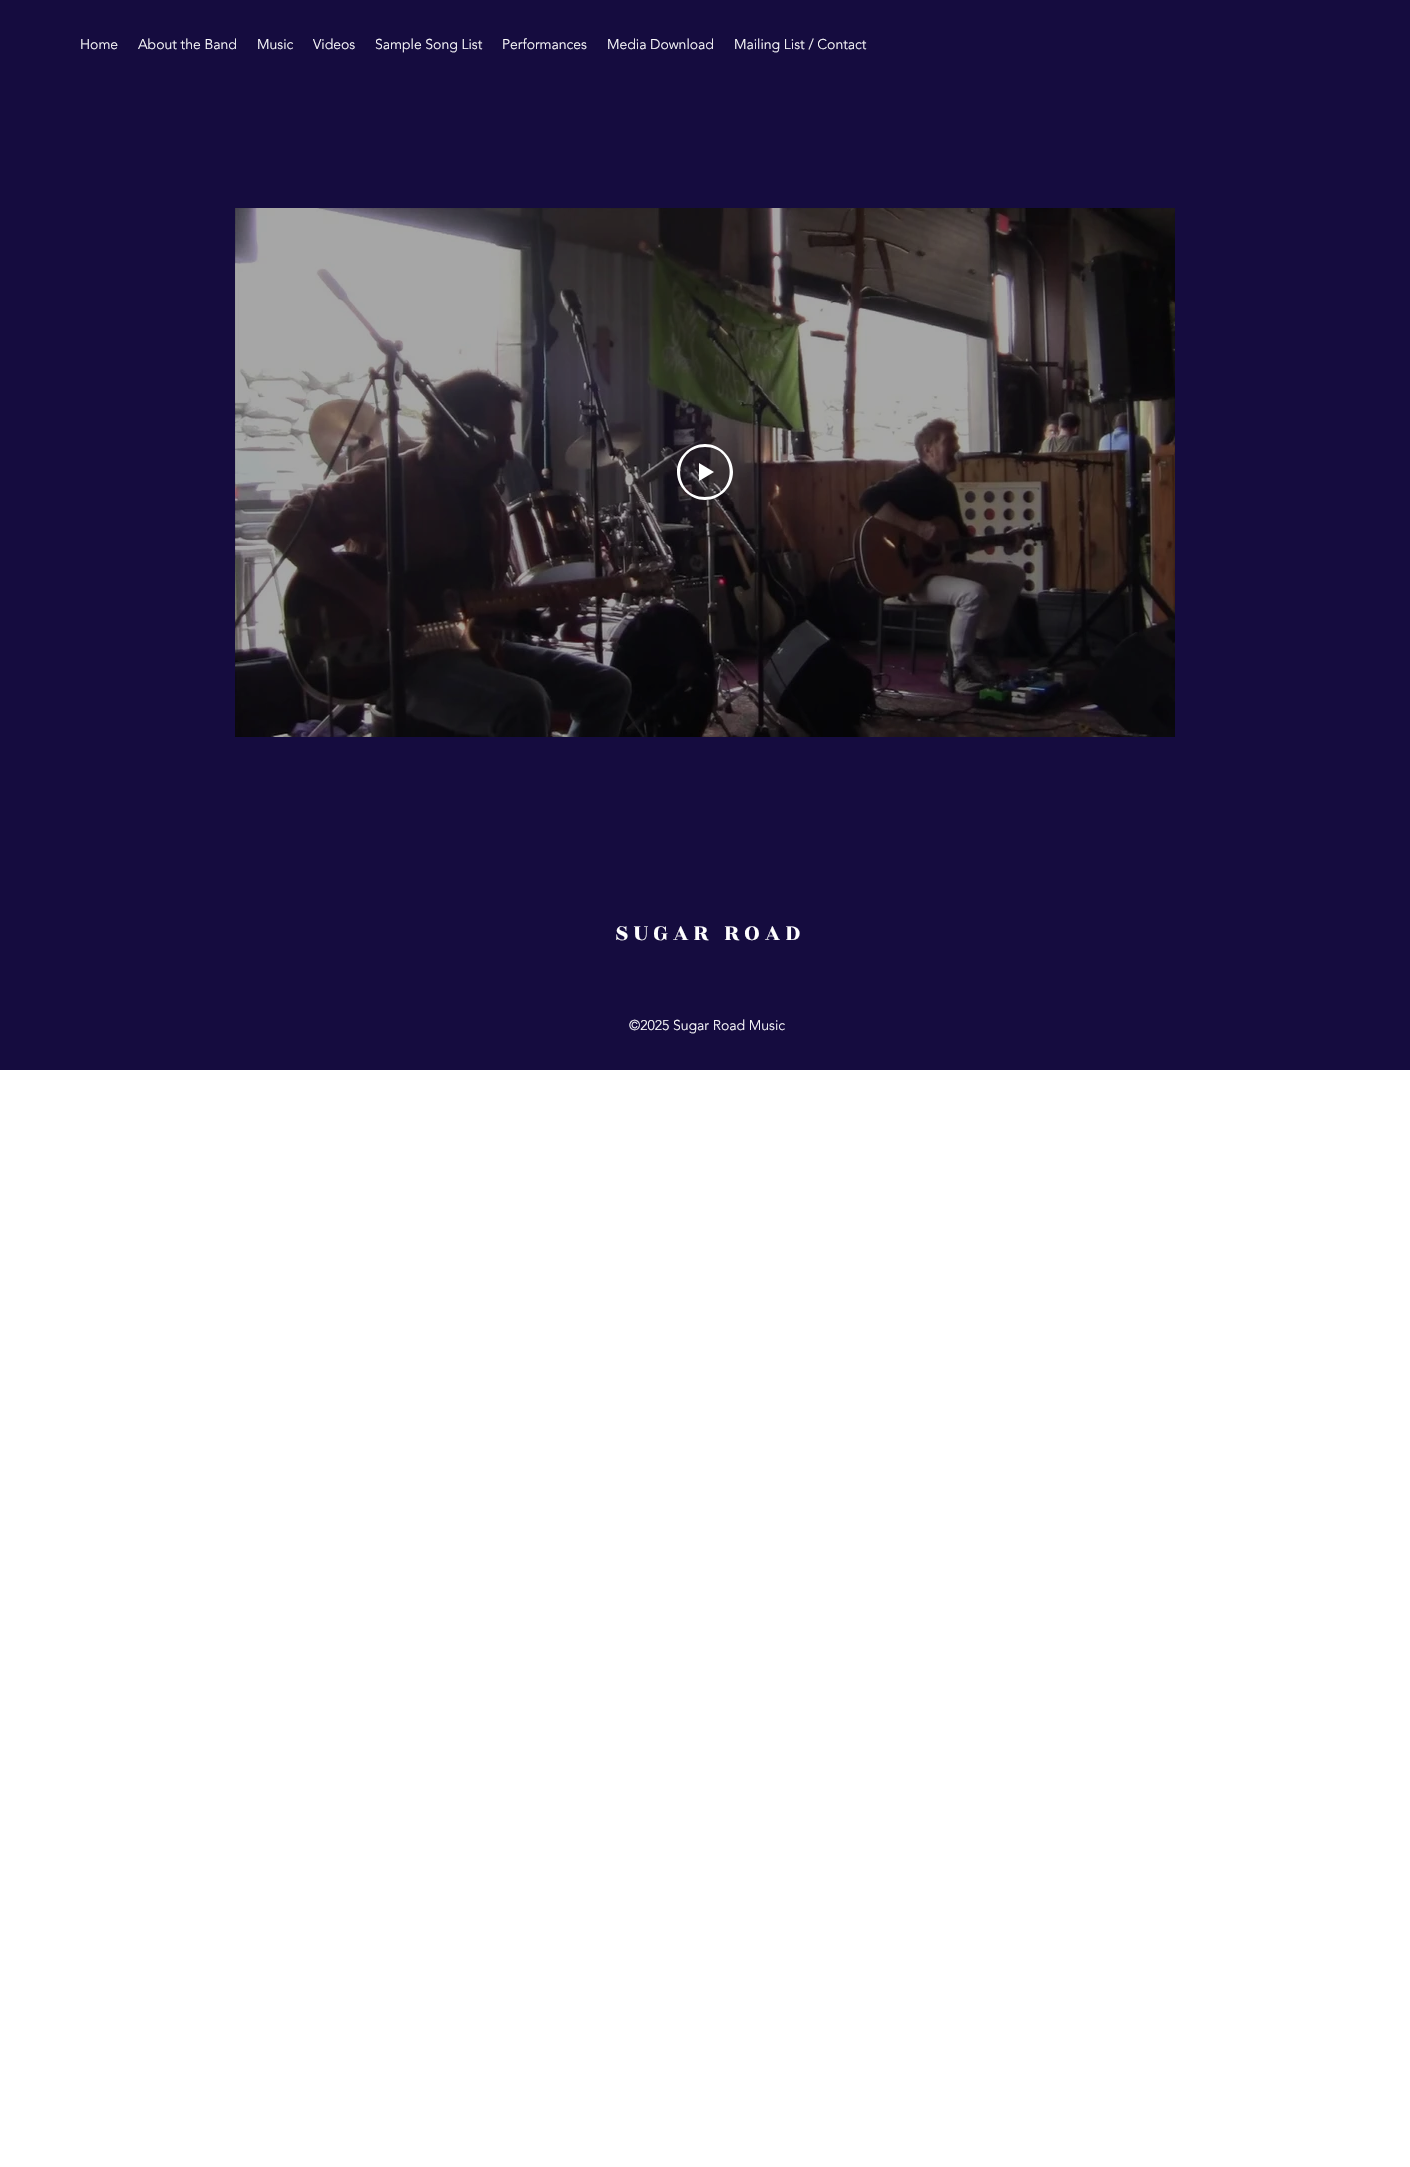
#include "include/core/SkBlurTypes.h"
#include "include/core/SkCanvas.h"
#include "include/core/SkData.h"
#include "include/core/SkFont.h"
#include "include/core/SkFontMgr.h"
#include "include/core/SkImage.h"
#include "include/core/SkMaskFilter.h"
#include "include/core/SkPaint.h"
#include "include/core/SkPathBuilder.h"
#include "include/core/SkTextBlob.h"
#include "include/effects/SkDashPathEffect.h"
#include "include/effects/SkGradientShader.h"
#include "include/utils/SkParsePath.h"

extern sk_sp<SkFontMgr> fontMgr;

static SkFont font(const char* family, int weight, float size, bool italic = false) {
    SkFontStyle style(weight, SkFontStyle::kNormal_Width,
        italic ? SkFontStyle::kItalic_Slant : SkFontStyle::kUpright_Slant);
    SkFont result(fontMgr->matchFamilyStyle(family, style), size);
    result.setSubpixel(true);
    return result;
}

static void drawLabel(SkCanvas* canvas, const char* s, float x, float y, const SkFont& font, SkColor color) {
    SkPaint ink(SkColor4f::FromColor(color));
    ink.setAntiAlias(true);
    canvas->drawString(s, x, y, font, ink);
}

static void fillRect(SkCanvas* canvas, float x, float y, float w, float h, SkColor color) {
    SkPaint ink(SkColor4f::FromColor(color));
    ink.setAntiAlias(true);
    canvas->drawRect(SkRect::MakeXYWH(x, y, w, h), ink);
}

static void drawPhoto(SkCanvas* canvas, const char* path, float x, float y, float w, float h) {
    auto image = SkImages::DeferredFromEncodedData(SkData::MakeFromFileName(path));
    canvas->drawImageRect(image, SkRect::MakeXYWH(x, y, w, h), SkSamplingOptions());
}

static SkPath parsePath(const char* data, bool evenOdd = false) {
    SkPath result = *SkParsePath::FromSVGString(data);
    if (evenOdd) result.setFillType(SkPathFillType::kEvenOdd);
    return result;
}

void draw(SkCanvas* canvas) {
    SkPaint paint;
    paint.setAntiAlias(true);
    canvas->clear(0xFFFFFFFF);
    fillRect(canvas, 0, 0, 1410, 1070, 0xFF150C3F);
    drawPhoto(canvas, "assets/img1.png", 235, 208, 940, 529);
    drawPhoto(canvas, "assets/img2.png", 235, 230, 921, 507);
    paint.setColor(0xFFFFFFFF);
    canvas->drawPath(parsePath("M705 497C738 497 738 447 705 447C672 447 672 497 705 497ZM705 500C690 500 677 487 677 472C677 457 690 444 705 444C720 444 733 457 733 472C733 487 720 500 705 500Z", true), paint);
    canvas->drawPath(parsePath("M714 472L699 481V463Z", true), paint);
    SkFont font1 = font("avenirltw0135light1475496", 300, 14);
    drawLabel(canvas, "Home", 80, 49, font1, 0xFFFFFFFF);
    drawLabel(canvas, "About the Band", 138, 49, font1, 0xFFFFFFFF);
    drawLabel(canvas, "Music", 257, 49, font1, 0xFFFFFFFF);
    drawLabel(canvas, "Videos", 313, 49, font1, 0xFFFFFFFF);
    drawLabel(canvas, "Sample Song List", 375, 49, font1, 0xFFFFFFFF);
    drawLabel(canvas, "Performances", 502, 49, font1, 0xFFFFFFFF);
    drawLabel(canvas, "Media Download", 607, 49, font1, 0xFFFFFFFF);
    drawLabel(canvas, "Mailing List / Contact", 734, 49, font1, 0xFFFFFFFF);
    SkFont font2 = font("Rozha One", 400, 24);
    drawLabel(canvas, "S U G A R   R O A D", 615, 940, font2, 0xFFFFFFFF);
    drawLabel(canvas, "©2025 Sugar Road Music", 629, 1030, font1, 0xFFFFFFFF);
}
